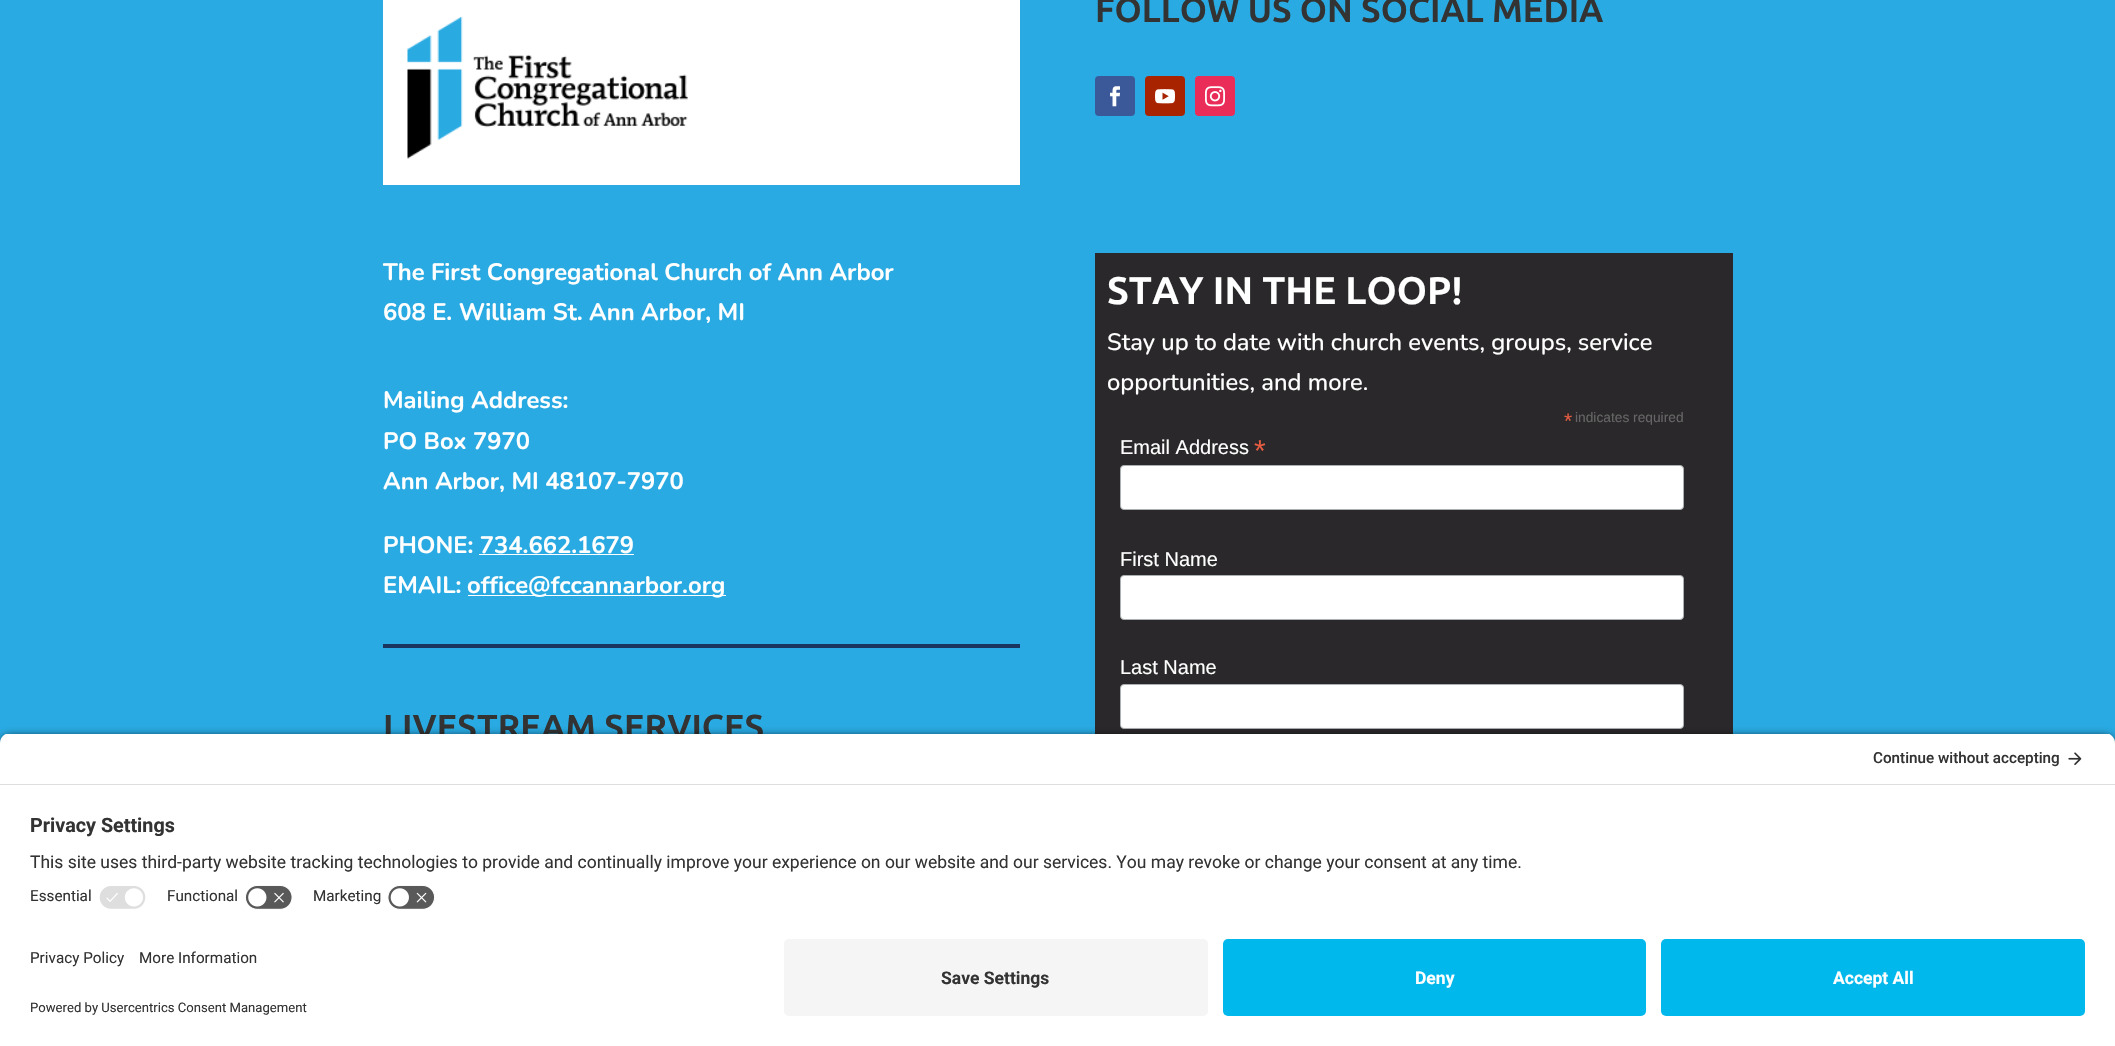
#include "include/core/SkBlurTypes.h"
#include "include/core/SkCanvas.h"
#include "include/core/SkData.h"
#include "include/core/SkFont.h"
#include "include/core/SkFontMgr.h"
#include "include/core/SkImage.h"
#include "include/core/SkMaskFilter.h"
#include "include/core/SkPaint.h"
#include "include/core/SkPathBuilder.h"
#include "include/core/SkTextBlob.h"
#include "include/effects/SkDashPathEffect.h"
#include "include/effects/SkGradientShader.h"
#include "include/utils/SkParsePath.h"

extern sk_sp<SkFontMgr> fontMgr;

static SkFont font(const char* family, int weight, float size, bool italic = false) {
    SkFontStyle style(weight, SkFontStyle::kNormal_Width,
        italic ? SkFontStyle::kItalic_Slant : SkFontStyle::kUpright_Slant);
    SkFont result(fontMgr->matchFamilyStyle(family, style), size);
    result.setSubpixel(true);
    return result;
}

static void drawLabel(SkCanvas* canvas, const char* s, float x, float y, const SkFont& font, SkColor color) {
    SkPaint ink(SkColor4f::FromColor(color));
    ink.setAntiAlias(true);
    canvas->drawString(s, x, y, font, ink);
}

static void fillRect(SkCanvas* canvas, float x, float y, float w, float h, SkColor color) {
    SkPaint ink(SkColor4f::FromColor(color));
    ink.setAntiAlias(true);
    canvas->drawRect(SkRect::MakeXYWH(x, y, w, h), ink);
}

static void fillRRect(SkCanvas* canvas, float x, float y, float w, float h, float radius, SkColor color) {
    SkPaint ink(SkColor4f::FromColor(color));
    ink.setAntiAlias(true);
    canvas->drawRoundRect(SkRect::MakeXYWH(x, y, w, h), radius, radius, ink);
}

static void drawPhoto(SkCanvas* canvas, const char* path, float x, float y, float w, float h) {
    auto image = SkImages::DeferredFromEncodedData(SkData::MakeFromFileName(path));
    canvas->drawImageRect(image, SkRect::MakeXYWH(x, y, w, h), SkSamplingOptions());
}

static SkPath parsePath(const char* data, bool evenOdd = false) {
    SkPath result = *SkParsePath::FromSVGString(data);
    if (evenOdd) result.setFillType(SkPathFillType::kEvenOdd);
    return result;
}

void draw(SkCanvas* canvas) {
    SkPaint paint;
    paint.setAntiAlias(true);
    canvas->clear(0xFF29AAE2);
    fillRect(canvas, 383, 0, 637, 185, 0xFFFFFFFF);
    drawPhoto(canvas, "assets/img1.png", 407, 17, 281, 142);
    SkFont font1 = font("Ubuntu", 700, 34.6f);
    drawLabel(canvas, "FOLLOW US ON SOCIAL MEDIA", 1095, 22, font1, 0xFF333333);
    fillRRect(canvas, 1095, 76, 40, 40, 4, 0xFF3B5998);
    drawPhoto(canvas, "assets/img2.png", 1110, 86, 10, 21);
    fillRRect(canvas, 1145, 76, 40, 40, 4, 0xFFA82400);
    drawPhoto(canvas, "assets/img3.png", 1155, 89, 20, 15);
    fillRRect(canvas, 1195, 76, 40, 40, 4, 0xFFEA2C59);
    drawPhoto(canvas, "assets/img4.png", 1205, 86, 20, 21);
    SkFont font2 = font("Nunito", 700, 23.75f);
    drawLabel(canvas, "The First Congregational Church of Ann Arbor", 383, 280, font2, 0xFFFFFFFF);
    drawLabel(canvas, "608 E. William St. Ann Arbor, MI", 383, 320, font2, 0xFFFFFFFF);
    drawLabel(canvas, "Mailing Address:", 383, 408, font2, 0xFFFFFFFF);
    drawLabel(canvas, "PO Box 7970", 383, 449, font2, 0xFFFFFFFF);
    drawLabel(canvas, "Ann Arbor, MI 48107-7970", 383, 489, font2, 0xFFFFFFFF);
    drawLabel(canvas, "PHONE: 734.662.1679", 383, 553, font2, 0xFFFFFFFF);
    fillRect(canvas, 479, 554, 155, 1, 0xFFFFFFFF);
    drawLabel(canvas, "EMAIL:", 383, 593, font2, 0xFFFFFFFF);
    fillRect(canvas, 468, 595, 258, 1, 0xFFFFFFFF);
    drawLabel(canvas, "office@fccannarbor.org", 467, 593, font2, 0xFFFFFFFF);
    fillRect(canvas, 383, 644, 637, 4, 0xFF1A365E);
    drawLabel(canvas, "LIVESTREAM SERVICES", 383, 739, font1, 0xFF333333);
    fillRect(canvas, 1095, 253, 638, 481, 0xFF2A282A);
    SkFont font3 = font("Ubuntu", 700, 38.5f);
    drawLabel(canvas, "STAY IN THE LOOP!", 1107, 304, font3, 0xFFFFFFFF);
    SkFont font4 = font("Nunito", 500, 23.75f);
    drawLabel(canvas, "Stay up to date with church events, groups, service", 1107, 350, font4, 0xFFFFFFFF);
    drawLabel(canvas, "opportunities, and more.", 1107, 390, font4, 0xFFFFFFFF);
    SkFont font5 = font("Liberation Sans", 400, 21);
    drawLabel(canvas, "*", 1564, 428, font5, 0xFFE85C41);
    SkFont font6 = font("Liberation Sans", 400, 13.75f);
    drawLabel(canvas, "indicates required", 1575, 422, font6, 0xFF666666);
    SkFont font7 = font("Liberation Sans", 400, 20);
    drawLabel(canvas, "Email Address", 1120, 454, font7, 0xFFFFFFFF);
    SkFont font8 = font("Liberation Sans", 400, 30);
    drawLabel(canvas, "*", 1254, 461, font8, 0xFFE85C41);
    paint.setColor(0xFFFFFFFF);
    canvas->drawRoundRect(SkRect::MakeXYWH(1120.5f, 465.5f, 563, 44), 3.5f, 3.5f, paint);
    paint.setStroke(true);
    paint.setStrokeWidth(1);
    paint.setColor(0xFFABB0B2);
    canvas->drawRoundRect(SkRect::MakeXYWH(1120.5f, 465.5f, 563, 44), 3.5f, 3.5f, paint);
    drawLabel(canvas, "First Name", 1120, 566, font7, 0xFFFFFFFF);
    paint.setStroke(false);
    paint.setColor(0xFFFFFFFF);
    canvas->drawRoundRect(SkRect::MakeXYWH(1120.5f, 575.5f, 563, 44), 3.5f, 3.5f, paint);
    paint.setStroke(true);
    paint.setColor(0xFFABB0B2);
    canvas->drawRoundRect(SkRect::MakeXYWH(1120.5f, 575.5f, 563, 44), 3.5f, 3.5f, paint);
    drawLabel(canvas, "Last Name", 1120, 674, font7, 0xFFFFFFFF);
    paint.setStroke(false);
    paint.setColor(0xFFFFFFFF);
    canvas->drawRoundRect(SkRect::MakeXYWH(1120.5f, 684.5f, 563, 44), 3.5f, 3.5f, paint);
    paint.setStroke(true);
    paint.setColor(0xFFABB0B2);
    canvas->drawRoundRect(SkRect::MakeXYWH(1120.5f, 684.5f, 563, 44), 3.5f, 3.5f, paint);
    paint.setStroke(false);
    paint.setColor(0xCC000000);
    paint.setMaskFilter(SkMaskFilter::MakeBlur(kNormal_SkBlurStyle, 4.5f));
    canvas->drawRoundRect(SkRect::MakeXYWH(0, 736, 2115, 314), 10, 10, paint);
    paint.setMaskFilter(nullptr);
    canvas->save();
    canvas->clipPath(parsePath("M10 733H2105C2110.5 733 2115 737.5 2115 743V929H0V743C0 737.5 4.5 733 10 733Z"), true);
    fillRect(canvas, 0, 734, 2115, 50, 0xFFFFFFFF);
    canvas->restore();
    fillRect(canvas, 0, 784, 2115, 1, 0xFFDEDEDE);
    SkFont font9 = font("Roboto", 500, 15.25f);
    drawLabel(canvas, "Continue without accepting", 1873, 763, font9, 0xFF333333);
    drawPhoto(canvas, "assets/img5.png", 2068, 752, 14, 13);
    fillRect(canvas, 0, 785, 2115, 261, 0xFFFFFFFF);
    SkFont font10 = font("Roboto", 700, 19.75f);
    drawLabel(canvas, "Privacy Settings", 30, 832, font10, 0xFF333333);
    SkFont font11 = font("Roboto", 400, 17.5f);
    drawLabel(canvas, "This site uses third-party website tracking technologies to provide and continually improve your experience on our website and our services. You may revoke or change your consent at any time.", 30, 868, font11, 0xFF333333);
    SkFont font12 = font("Roboto", 400, 15.25f);
    drawLabel(canvas, "Essential", 30, 901, font12, 0xFF333333);
    drawPhoto(canvas, "assets/img6.png", 99, 886, 47, 23);
    drawLabel(canvas, "Functional", 167, 901, font12, 0xFF333333);
    drawPhoto(canvas, "assets/img7.png", 245, 885, 48, 25);
    drawLabel(canvas, "Marketing", 313, 901, font12, 0xFF333333);
    drawPhoto(canvas, "assets/img8.png", 387, 885, 48, 25);
    drawLabel(canvas, "Privacy Policy", 30, 963, font12, 0xFF333333);
    drawLabel(canvas, "More Information", 139, 963, font12, 0xFF333333);
    SkFont font13 = font("Roboto", 400, 13.1f);
    drawLabel(canvas, "Powered by Usercentrics Consent Management", 30, 1012, font13, 0xFF333333);
    fillRRect(canvas, 784, 939, 424, 77, 5, 0xFFF5F5F5);
    SkFont font14 = font("Roboto", 700, 17.5f);
    drawLabel(canvas, "Save Settings", 941, 984, font14, 0xFF333333);
    fillRRect(canvas, 1223, 939, 423, 77, 5, 0xFF00B8EC);
    drawLabel(canvas, "Deny", 1415, 984, font14, 0xFFFFFFFF);
    fillRRect(canvas, 1661, 939, 424, 77, 5, 0xFF00B8EC);
    drawLabel(canvas, "Accept All", 1833, 984, font14, 0xFFFFFFFF);
}
